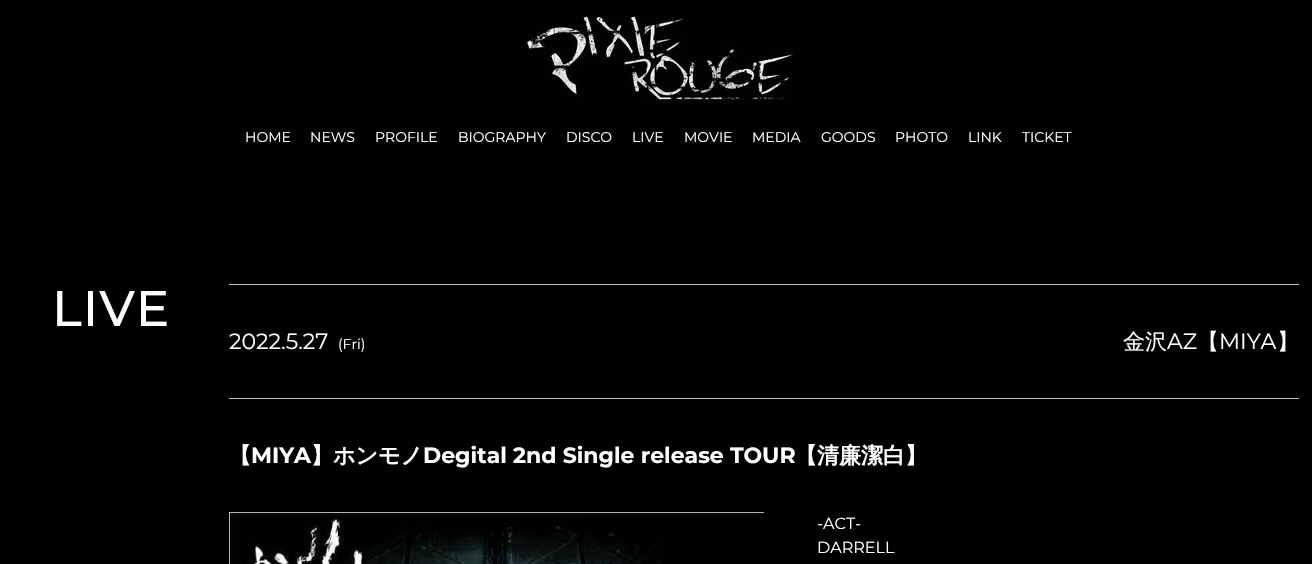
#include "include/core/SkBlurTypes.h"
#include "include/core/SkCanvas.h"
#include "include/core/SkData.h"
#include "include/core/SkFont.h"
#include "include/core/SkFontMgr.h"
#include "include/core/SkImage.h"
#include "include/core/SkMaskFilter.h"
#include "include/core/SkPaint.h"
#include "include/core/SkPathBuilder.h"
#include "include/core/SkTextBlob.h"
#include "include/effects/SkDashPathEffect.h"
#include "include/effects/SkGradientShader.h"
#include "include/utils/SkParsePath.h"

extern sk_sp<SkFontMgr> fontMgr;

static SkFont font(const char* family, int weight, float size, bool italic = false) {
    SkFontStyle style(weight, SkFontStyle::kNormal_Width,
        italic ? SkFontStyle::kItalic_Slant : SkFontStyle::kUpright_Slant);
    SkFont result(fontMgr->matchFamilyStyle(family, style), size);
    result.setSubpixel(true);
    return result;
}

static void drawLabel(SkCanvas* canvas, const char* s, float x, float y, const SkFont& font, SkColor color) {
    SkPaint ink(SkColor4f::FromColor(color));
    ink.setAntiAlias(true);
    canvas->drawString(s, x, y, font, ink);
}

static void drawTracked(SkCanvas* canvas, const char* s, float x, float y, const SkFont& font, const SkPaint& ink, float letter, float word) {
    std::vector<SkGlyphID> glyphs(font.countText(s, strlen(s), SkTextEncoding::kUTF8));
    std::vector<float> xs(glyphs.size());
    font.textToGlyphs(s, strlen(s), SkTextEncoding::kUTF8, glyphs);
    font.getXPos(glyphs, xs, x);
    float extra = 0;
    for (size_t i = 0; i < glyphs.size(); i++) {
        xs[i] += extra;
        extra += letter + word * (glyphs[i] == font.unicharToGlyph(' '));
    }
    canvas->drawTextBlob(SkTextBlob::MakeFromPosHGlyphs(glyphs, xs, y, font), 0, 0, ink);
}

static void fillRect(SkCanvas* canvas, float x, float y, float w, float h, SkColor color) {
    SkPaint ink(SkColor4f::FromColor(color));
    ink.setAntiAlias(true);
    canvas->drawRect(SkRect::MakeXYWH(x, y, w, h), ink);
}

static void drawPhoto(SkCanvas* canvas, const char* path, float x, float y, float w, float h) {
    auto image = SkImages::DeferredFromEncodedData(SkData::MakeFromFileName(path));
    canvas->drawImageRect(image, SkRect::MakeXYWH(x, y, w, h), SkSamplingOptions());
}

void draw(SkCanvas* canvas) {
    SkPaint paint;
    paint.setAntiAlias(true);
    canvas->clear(0xFF000000);
    drawPhoto(canvas, "assets/img1.png", 524, 11, 272, 96);
    SkFont font1 = font("Montserrat", 400, 14);
    drawLabel(canvas, "HOME", 245, 142, font1, 0xFFFFFFFF);
    drawLabel(canvas, "NEWS", 310, 142, font1, 0xFFFFFFFF);
    drawLabel(canvas, "PROFILE", 375, 142, font1, 0xFFFFFFFF);
    drawLabel(canvas, "BIOGRAPHY", 458, 142, font1, 0xFFFFFFFF);
    drawLabel(canvas, "DISCO", 566, 142, font1, 0xFFFFFFFF);
    drawLabel(canvas, "LIVE", 632, 142, font1, 0xFFFFFFFF);
    drawLabel(canvas, "MOVIE", 684, 142, font1, 0xFFFFFFFF);
    drawLabel(canvas, "MEDIA", 752, 142, font1, 0xFFFFFFFF);
    drawLabel(canvas, "GOODS", 821, 142, font1, 0xFFFFFFFF);
    drawLabel(canvas, "PHOTO", 895, 142, font1, 0xFFFFFFFF);
    drawLabel(canvas, "LINK", 968, 142, font1, 0xFFFFFFFF);
    drawLabel(canvas, "TICKET", 1022, 142, font1, 0xFFFFFFFF);
    SkFont font2 = font("Montserrat", 500, 50);
    paint.setColor(0xFFFFFFFF);
    drawTracked(canvas, "LIVE", 52, 326, font2, paint, 1, 0);
    fillRect(canvas, 229, 284, 1070, 1, 0xFFBFBFBF);
    fillRect(canvas, 229, 398, 1070, 1, 0xFFBFBFBF);
    SkFont font3 = font("Montserrat", 400, 22);
    drawLabel(canvas, "2022.5.27", 229, 349, font3, 0xFFFFFFFF);
    drawLabel(canvas, "(Fri)", 338, 349, font1, 0xFFFFFFFF);
    SkFont font4 = font("WenQuanYi Zen Hei", 500, 22);
    drawLabel(canvas, "金沢", 1123, 349, font4, 0xFFFFFFFF);
    drawLabel(canvas, "AZ", 1167, 349, font3, 0xFFFFFFFF);
    drawLabel(canvas, "【", 1197, 349, font4, 0xFFFFFFFF);
    drawLabel(canvas, "MIYA", 1219, 349, font3, 0xFFFFFFFF);
    drawLabel(canvas, "】", 1277, 349, font4, 0xFFFFFFFF);
    SkFont font5 = font("WenQuanYi Zen Hei", 700, 22);
    drawLabel(canvas, "【", 229, 463, font5, 0xFFFFFFFF);
    SkFont font6 = font("Montserrat", 700, 22);
    drawLabel(canvas, "MIYA", 251, 463, font6, 0xFFFFFFFF);
    drawLabel(canvas, "】ホンモノ", 311, 463, font5, 0xFFFFFFFF);
    drawLabel(canvas, "Degital 2nd Single release TOUR", 423, 463, font6, 0xFFFFFFFF);
    drawLabel(canvas, "【清廉潔白】", 795, 463, font5, 0xFFFFFFFF);
    drawPhoto(canvas, "assets/img2.png", 229, 512, 535, 52);
    SkFont font7 = font("Montserrat", 400, 16);
    drawLabel(canvas, "-ACT-", 817, 529, font7, 0xFFFFFFFF);
    drawLabel(canvas, "DARRELL", 817, 553, font7, 0xFFFFFFFF);
}
